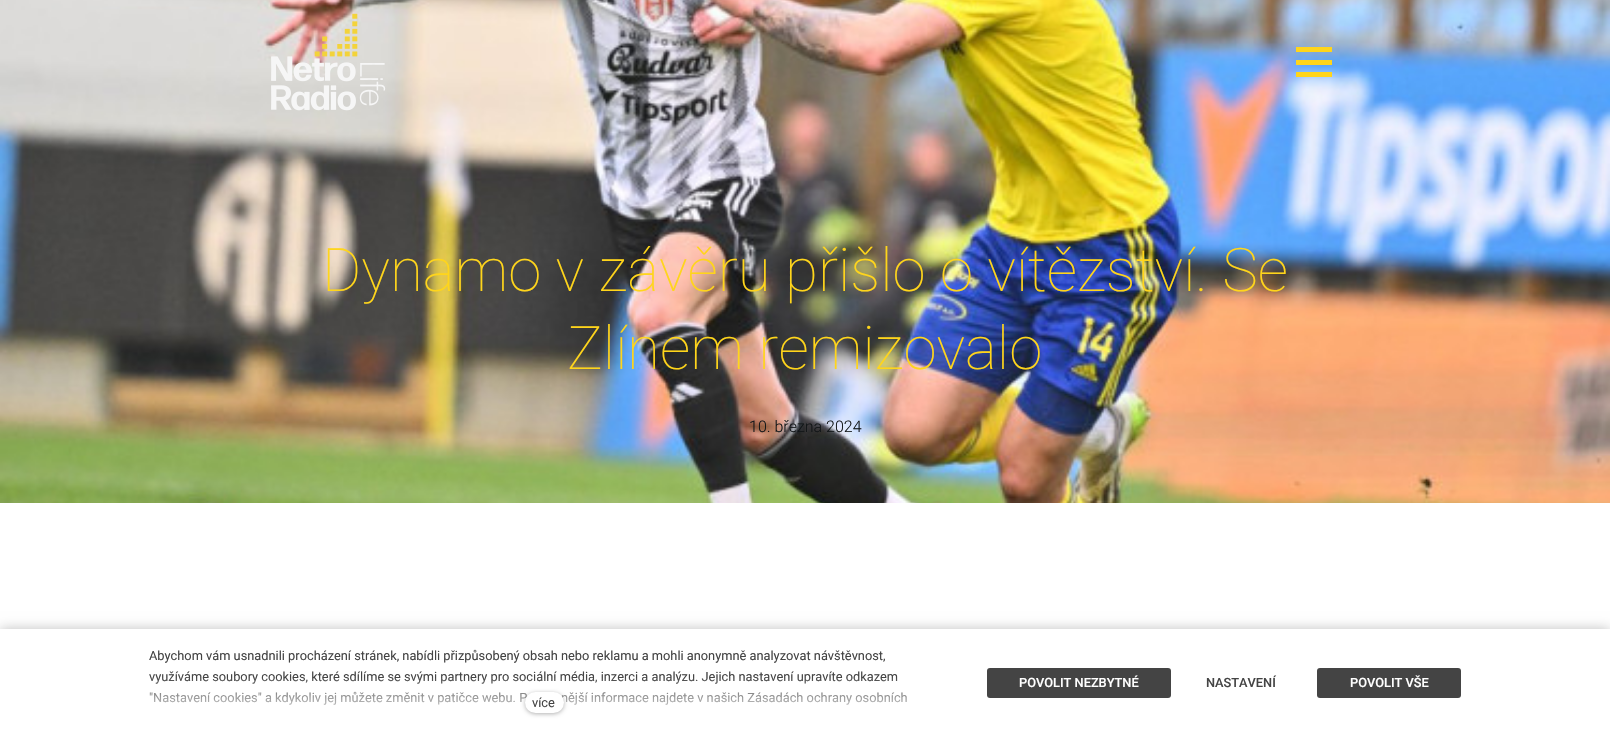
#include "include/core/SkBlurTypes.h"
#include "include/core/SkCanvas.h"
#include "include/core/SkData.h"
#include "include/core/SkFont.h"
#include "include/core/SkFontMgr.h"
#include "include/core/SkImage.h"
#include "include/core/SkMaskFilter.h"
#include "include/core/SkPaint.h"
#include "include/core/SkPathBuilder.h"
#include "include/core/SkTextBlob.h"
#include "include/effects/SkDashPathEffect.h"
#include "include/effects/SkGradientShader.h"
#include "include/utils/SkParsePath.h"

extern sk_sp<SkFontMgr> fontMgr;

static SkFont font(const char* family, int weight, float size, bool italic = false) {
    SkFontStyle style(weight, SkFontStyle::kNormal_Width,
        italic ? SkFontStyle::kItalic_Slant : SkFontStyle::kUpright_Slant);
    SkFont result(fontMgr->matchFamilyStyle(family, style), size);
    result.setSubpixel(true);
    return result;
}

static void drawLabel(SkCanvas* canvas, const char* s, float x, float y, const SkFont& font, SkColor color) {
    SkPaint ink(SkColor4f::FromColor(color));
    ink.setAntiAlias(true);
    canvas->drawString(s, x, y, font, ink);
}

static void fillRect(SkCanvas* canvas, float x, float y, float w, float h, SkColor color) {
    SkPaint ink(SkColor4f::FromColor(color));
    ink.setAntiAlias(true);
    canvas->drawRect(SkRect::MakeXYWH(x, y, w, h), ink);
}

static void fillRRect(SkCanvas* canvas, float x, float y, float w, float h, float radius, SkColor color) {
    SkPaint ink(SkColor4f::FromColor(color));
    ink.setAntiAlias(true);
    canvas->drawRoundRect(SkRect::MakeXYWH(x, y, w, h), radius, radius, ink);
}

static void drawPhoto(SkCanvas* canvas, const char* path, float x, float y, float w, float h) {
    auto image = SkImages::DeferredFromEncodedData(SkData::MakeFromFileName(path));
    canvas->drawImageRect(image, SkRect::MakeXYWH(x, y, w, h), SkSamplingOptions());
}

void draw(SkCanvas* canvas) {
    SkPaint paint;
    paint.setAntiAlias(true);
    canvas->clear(0xFFFFFFFF);
    drawPhoto(canvas, "assets/img2.png", 0, 0, 1610, 503);
    drawPhoto(canvas, "assets/img1.png", 271, 13, 115, 98);
    fillRect(canvas, 1296, 47, 36, 5, 0xFFFFD51B);
    fillRect(canvas, 1296, 60, 36, 5, 0xFFFFD51B);
    fillRect(canvas, 1296, 72, 36, 5, 0xFFFFD51B);
    SkFont font1 = font("Roboto", 100, 60);
    drawLabel(canvas, "Dynamo v závěru přišlo o vítězství. Se", 322, 291, font1, 0xFFFFD51B);
    drawLabel(canvas, "Zlínem remizovalo", 567, 369, font1, 0xFFFFD51B);
    SkFont font2 = font("Roboto", 300, 16);
    drawLabel(canvas, "10. března 2024", 749, 432, font2, 0xFF111517);
    paint.setColor(0x40000000);
    paint.setMaskFilter(SkMaskFilter::MakeBlur(kNormal_SkBlurStyle, 6));
    canvas->drawRect(SkRect::MakeXYWH(0, 629, 1610, 108), paint);
    paint.setMaskFilter(nullptr);
    fillRect(canvas, 0, 629, 1610, 108, 0xFFFFFFFF);
    SkFont font3 = font("Roboto", 400, 12.8f);
    drawLabel(canvas, "Abychom vám usnadnili procházení stránek, nabídli přizpůsobený obsah nebo reklamu a mohli anonymně analyzovat návštěvnost,", 149, 660, font3, 0xFF444444);
    drawLabel(canvas, "využíváme soubory cookies, které sdílíme se svými partnery pro sociální média, inzerci a analýzu. Jejich nastavení upravíte odkazem", 149, 681, font3, 0xFF444444);
    drawLabel(canvas, "\"Nastavení cookies\" a kdykoliv jej můžete změnit v patičce webu. P", 149, 702, font3, 0xFF444444);
    drawLabel(canvas, "nější informace najdete v našich Zásadách ochrany osobních", 561, 702, font3, 0xFF444444);
    {
        const SkColor colors[] = {0xFFFFFFFF, 0x00FFFFFF};
        const float stops[] = {0, 1};
        const SkPoint ends[] = {{544, 721}, {544, 677}};
        paint.setShader(SkGradientShader::MakeLinear(ends, colors, stops, 2, SkTileMode::kClamp));
        paint.setAlpha(255);
    }
    canvas->drawRect(SkRect::MakeXYWH(149, 678, 758, 27), paint);
    paint.setShader(nullptr);
    paint.setColor(0x4D000000);
    paint.setMaskFilter(SkMaskFilter::MakeBlur(kNormal_SkBlurStyle, 2));
    canvas->drawRoundRect(SkRect::MakeXYWH(525, 693, 39, 21), 10.5f, 10.5f, paint);
    paint.setMaskFilter(nullptr);
    fillRRect(canvas, 525, 692, 39, 21, 10.5f, 0xFFFFFFFF);
    drawLabel(canvas, "více", 532, 707, font3, 0xFF444444);
    fillRRect(canvas, 987, 668, 184, 30, 3, 0xFF444444);
    SkFont font4 = font("Roboto", 500, 12.8f);
    drawLabel(canvas, "POVOLIT NEZBYTNÉ", 1019, 687, font4, 0xFFFFFFFF);
    drawLabel(canvas, "NASTAVENÍ", 1206, 687, font4, 0xFF444444);
    fillRRect(canvas, 1317, 668, 144, 30, 3, 0xFF444444);
    drawLabel(canvas, "POVOLIT VŠE", 1350, 687, font4, 0xFFFFFFFF);
}
